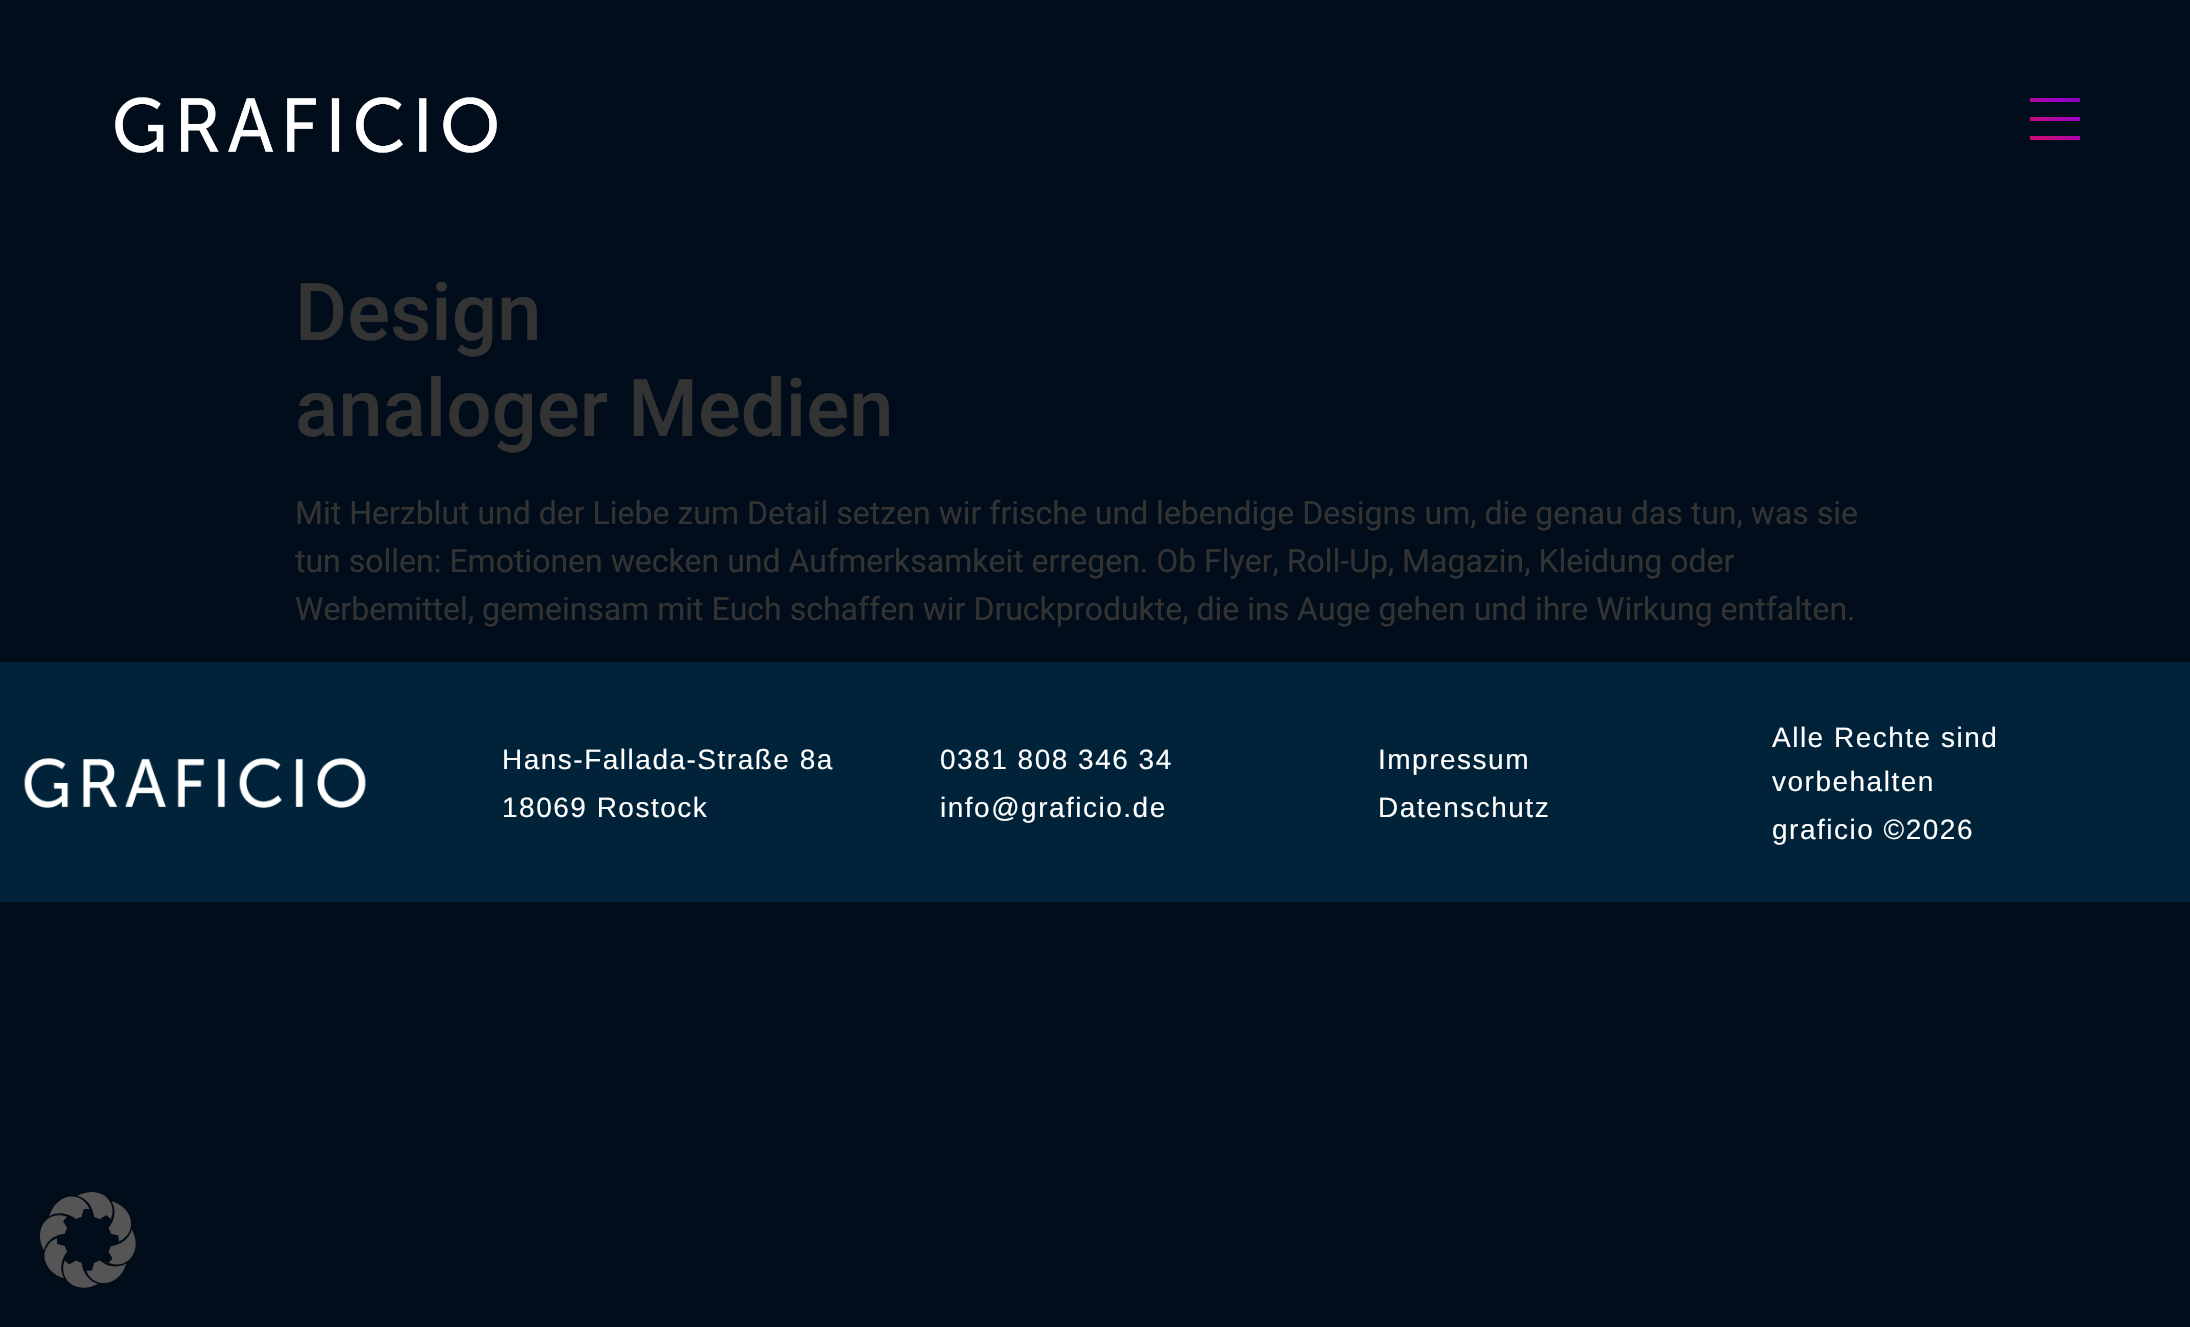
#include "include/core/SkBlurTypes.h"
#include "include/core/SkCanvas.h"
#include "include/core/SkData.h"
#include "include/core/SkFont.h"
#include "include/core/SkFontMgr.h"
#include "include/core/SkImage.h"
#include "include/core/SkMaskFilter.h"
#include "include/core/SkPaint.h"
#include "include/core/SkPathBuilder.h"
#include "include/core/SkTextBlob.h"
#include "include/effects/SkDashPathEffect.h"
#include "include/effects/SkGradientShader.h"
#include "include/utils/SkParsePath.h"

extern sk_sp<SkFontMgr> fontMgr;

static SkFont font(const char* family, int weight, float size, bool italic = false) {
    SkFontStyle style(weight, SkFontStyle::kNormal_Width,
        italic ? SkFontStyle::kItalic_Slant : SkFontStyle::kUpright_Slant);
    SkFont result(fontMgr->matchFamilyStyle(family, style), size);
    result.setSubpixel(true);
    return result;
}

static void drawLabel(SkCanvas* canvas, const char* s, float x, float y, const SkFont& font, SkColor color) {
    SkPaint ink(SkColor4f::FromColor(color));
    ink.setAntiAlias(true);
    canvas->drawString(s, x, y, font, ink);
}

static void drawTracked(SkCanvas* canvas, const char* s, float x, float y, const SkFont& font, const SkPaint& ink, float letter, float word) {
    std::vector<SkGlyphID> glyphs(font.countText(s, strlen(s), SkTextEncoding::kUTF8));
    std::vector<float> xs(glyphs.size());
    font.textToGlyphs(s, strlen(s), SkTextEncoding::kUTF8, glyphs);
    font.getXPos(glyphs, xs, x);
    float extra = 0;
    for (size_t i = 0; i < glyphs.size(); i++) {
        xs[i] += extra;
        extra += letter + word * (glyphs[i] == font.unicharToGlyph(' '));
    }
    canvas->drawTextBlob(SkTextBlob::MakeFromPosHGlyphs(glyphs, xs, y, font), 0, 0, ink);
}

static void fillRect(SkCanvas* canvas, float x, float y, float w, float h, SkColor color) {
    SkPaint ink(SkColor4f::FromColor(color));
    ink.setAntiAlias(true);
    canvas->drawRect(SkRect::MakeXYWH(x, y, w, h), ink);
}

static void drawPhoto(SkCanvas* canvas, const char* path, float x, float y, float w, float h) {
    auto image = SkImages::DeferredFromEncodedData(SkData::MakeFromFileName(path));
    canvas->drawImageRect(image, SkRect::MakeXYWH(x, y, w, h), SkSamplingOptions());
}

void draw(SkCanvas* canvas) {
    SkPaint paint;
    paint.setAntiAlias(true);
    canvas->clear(0xFF020D1B);
    drawPhoto(canvas, "assets/img1.png", 115, 97, 382, 56);
    {
        const SkColor colors[] = {0xFFE51766, 0xFFD90B6A, 0xFFBF0B88, 0xFF9901CA, 0xFF6C02A0};
        const float stops[] = {0, 0.18f, 0.42f, 0.71f, 1};
        const SkPoint ends[] = {{2004, 151}, {2080, 75}};
        paint.setShader(SkGradientShader::MakeLinear(ends, colors, stops, 5, SkTileMode::kClamp));
        paint.setAlpha(255);
    }
    canvas->drawRect(SkRect::MakeXYWH(2030, 98, 50, 4), paint);
    {
        const SkColor colors[] = {0xFFE51766, 0xFFD90B6A, 0xFFBF0B88, 0xFF9901CA, 0xFF6C02A0};
        const float stops[] = {0, 0.18f, 0.42f, 0.71f, 1};
        const SkPoint ends[] = {{2014, 160}, {2089, 85}};
        paint.setShader(SkGradientShader::MakeLinear(ends, colors, stops, 5, SkTileMode::kClamp));
        paint.setAlpha(255);
    }
    canvas->drawRect(SkRect::MakeXYWH(2030, 117, 50, 4), paint);
    {
        const SkColor colors[] = {0xFFE51766, 0xFFD90B6A, 0xFFBF0B88, 0xFF9901CA, 0xFF6C02A0};
        const float stops[] = {0, 0.18f, 0.42f, 0.71f, 1};
        const SkPoint ends[] = {{2023, 170}, {2099, 94}};
        paint.setShader(SkGradientShader::MakeLinear(ends, colors, stops, 5, SkTileMode::kClamp));
        paint.setAlpha(255);
    }
    canvas->drawRect(SkRect::MakeXYWH(2030, 136, 50, 4), paint);
    SkFont font1 = font("Roboto", 500, 80);
    drawLabel(canvas, "Design", 295, 340, font1, 0xFF333333);
    drawLabel(canvas, "analoger Medien", 295, 436, font1, 0xFF333333);
    SkFont font2 = font("Roboto", 400, 32);
    drawLabel(canvas, "Mit Herzblut und der Liebe zum Detail setzen wir frische und lebendige Designs um, die genau das tun, was sie", 295, 524, font2, 0xFF333333);
    drawLabel(canvas, "tun sollen: Emotionen wecken und Aufmerksamkeit erregen. Ob Flyer, Roll-Up, Magazin, Kleidung oder", 295, 572, font2, 0xFF333333);
    drawLabel(canvas, "Werbemittel, gemeinsam mit Euch schaffen wir Druckprodukte, die ins Auge gehen und ihre Wirkung entfalten.", 295, 620, font2, 0xFF333333);
    fillRect(canvas, 0, 662, 2190, 240, 0xFF002339);
    drawPhoto(canvas, "assets/img2.png", 24, 758, 342, 50);
    SkFont font3 = font("Liberation Sans", 400, 28);
    paint.setShader(nullptr);
    paint.setColor(0xFFFFFFFF);
    drawTracked(canvas, "Hans-Fallada-Straße 8a", 502, 769, font3, paint, 1.5f, 0);
    drawTracked(canvas, "18069 Rostock", 502, 817, font3, paint, 1.5f, 0);
    drawTracked(canvas, "0381 808 346 34", 940, 769, font3, paint, 1.5f, 0);
    drawTracked(canvas, "info@graficio.de", 940, 817, font3, paint, 1.5f, 0);
    drawTracked(canvas, "Impressum", 1378, 769, font3, paint, 1.5f, 0);
    drawTracked(canvas, "Datenschutz", 1378, 817, font3, paint, 1.5f, 0);
    drawTracked(canvas, "Alle Rechte sind", 1772, 747, font3, paint, 1.5f, 0);
    drawTracked(canvas, "vorbehalten", 1772, 791, font3, paint, 1.5f, 0);
    drawTracked(canvas, "graficio ©2026", 1772, 839, font3, paint, 1.5f, 0);
    drawPhoto(canvas, "assets/img3.png", 40, 1192, 96, 96);
}
